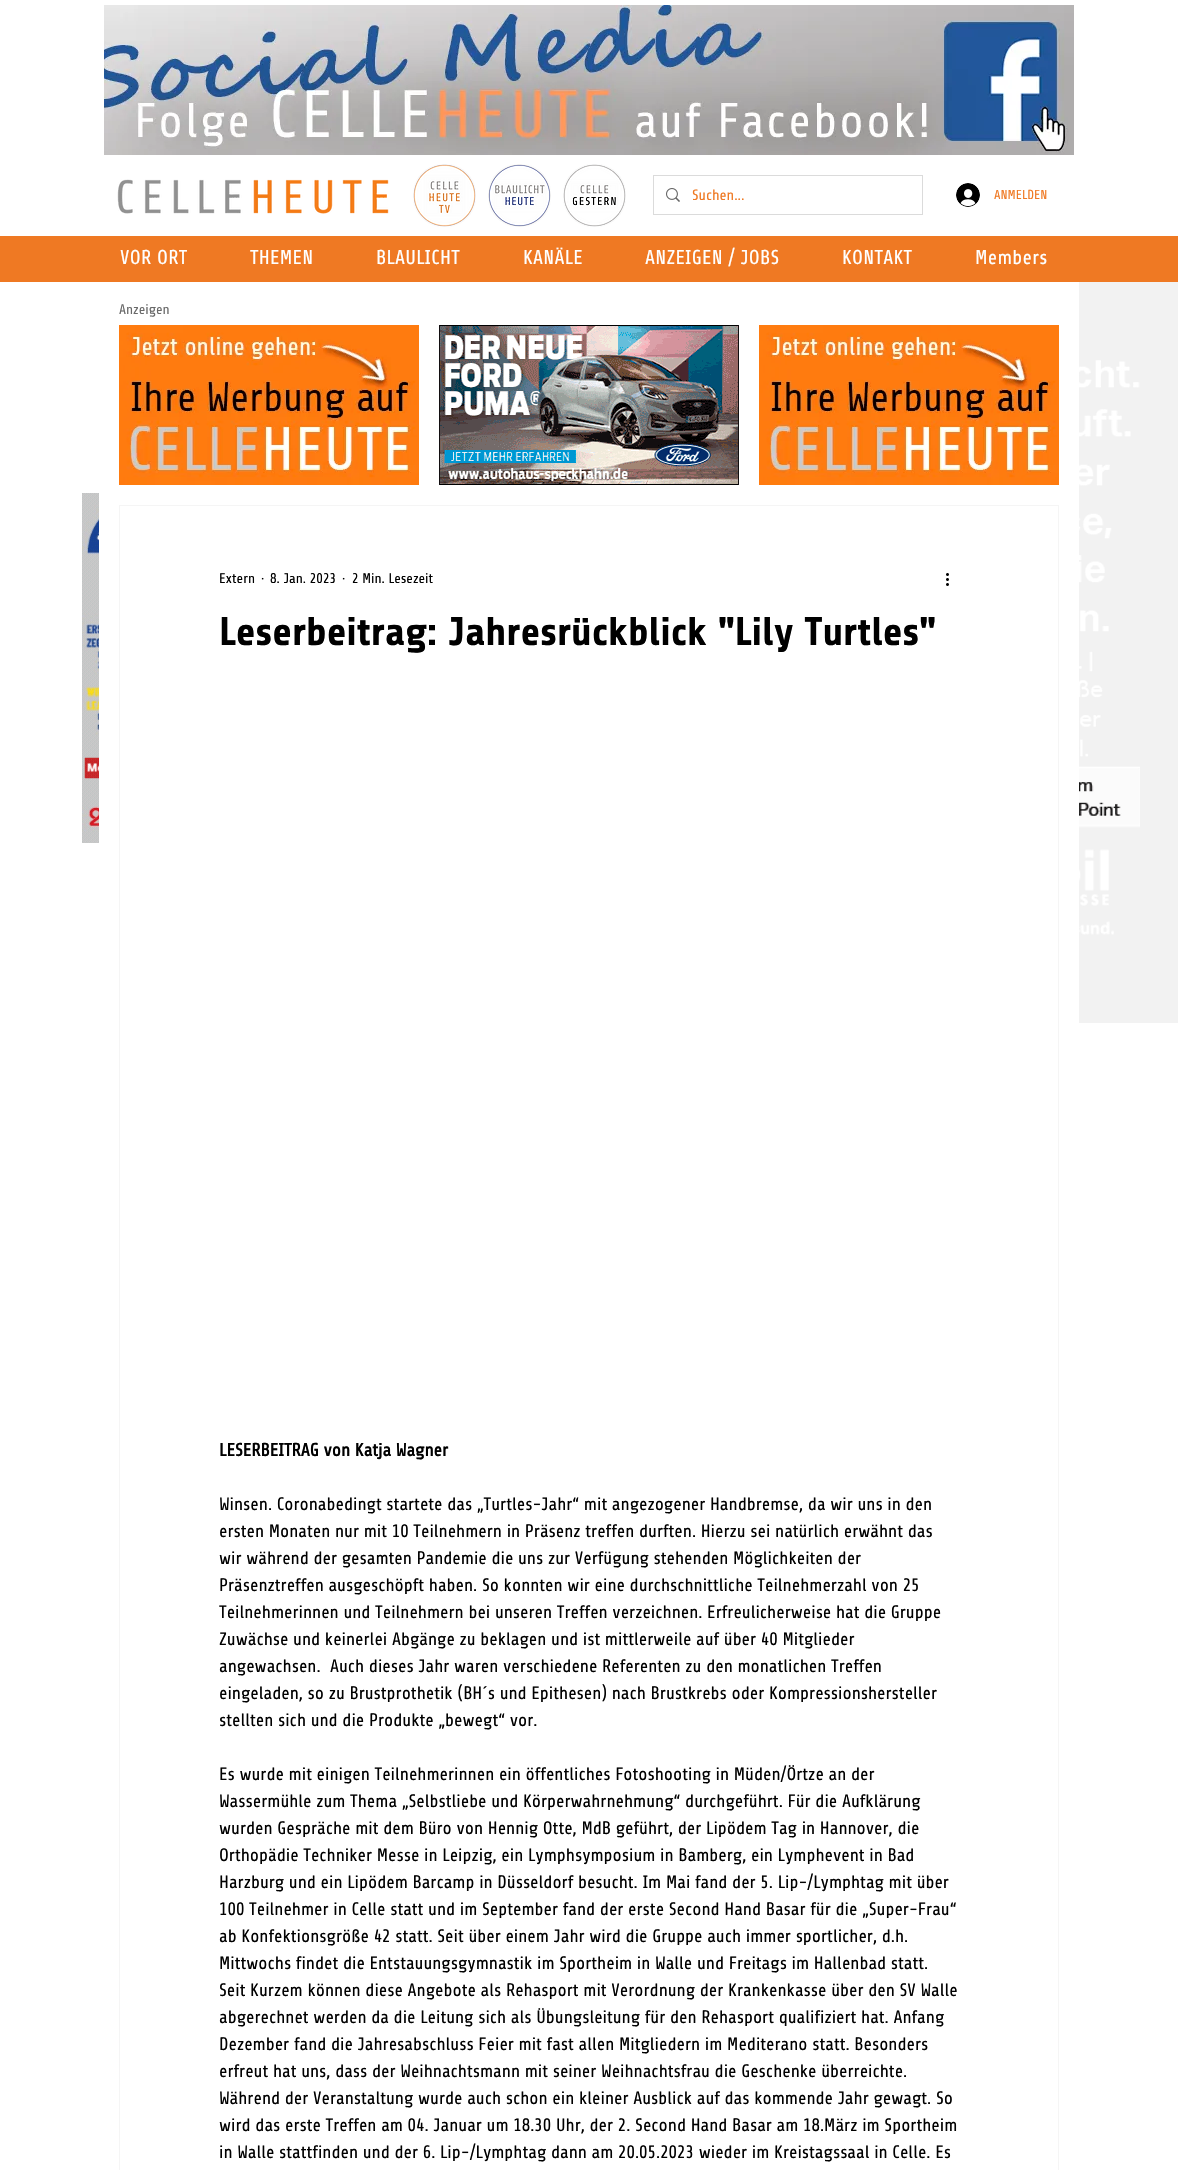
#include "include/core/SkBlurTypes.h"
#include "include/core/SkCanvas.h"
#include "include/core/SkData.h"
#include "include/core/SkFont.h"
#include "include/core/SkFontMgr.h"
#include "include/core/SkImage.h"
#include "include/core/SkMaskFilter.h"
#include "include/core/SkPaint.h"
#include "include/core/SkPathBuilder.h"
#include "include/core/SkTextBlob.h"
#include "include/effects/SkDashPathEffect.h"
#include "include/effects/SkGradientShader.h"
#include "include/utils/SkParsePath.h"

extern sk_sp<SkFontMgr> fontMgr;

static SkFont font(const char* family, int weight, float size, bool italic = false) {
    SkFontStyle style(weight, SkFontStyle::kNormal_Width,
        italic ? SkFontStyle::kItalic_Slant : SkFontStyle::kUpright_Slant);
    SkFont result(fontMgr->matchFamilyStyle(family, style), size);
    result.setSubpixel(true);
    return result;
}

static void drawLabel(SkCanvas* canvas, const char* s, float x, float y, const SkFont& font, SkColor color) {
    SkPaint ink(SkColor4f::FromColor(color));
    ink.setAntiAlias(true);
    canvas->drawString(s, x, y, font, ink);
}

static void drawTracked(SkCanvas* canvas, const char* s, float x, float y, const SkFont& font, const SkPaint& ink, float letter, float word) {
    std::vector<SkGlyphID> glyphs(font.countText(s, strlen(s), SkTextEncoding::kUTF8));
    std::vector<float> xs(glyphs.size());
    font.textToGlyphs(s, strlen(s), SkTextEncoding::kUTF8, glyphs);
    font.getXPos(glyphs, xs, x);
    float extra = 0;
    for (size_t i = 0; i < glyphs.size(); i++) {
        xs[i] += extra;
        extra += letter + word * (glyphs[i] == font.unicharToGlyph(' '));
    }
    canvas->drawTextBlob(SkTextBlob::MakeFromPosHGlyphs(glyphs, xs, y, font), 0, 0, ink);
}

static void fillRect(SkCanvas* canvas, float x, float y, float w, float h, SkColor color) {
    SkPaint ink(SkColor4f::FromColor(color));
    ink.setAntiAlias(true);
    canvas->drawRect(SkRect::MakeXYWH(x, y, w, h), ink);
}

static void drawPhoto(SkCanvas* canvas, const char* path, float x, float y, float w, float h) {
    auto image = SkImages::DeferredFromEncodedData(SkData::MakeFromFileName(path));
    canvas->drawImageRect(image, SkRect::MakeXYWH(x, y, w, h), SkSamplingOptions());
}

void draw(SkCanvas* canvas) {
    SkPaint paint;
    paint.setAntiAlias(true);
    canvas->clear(0xFFFFFFFF);
    drawPhoto(canvas, "assets/img1.png", 104, 5, 970, 150);
    drawPhoto(canvas, "assets/img2.png", 117, 179, 272, 35);
    drawPhoto(canvas, "assets/img3.png", 413, 164, 63, 63);
    drawPhoto(canvas, "assets/img4.png", 488, 164, 63, 63);
    drawPhoto(canvas, "assets/img5.png", 563, 164, 63, 63);
    paint.setStroke(true);
    paint.setStrokeWidth(1);
    paint.setColor(0xFFDBDBDB);
    canvas->drawRect(SkRect::MakeXYWH(653.5f, 175.5f, 269, 39), paint);
    drawPhoto(canvas, "assets/img6.png", 666, 188, 14, 14);
    SkFont font1 = font("Share", 400, 15);
    drawLabel(canvas, "Suchen...", 692, 200, font1, 0xFFEF7923);
    drawPhoto(canvas, "assets/img7.png", 956, 183, 24, 24);
    SkFont font2 = font("Share", 400, 13);
    drawLabel(canvas, "ANMELDEN", 994, 199, font2, 0xFFEF7923);
    fillRect(canvas, 0, 236, 1178, 46, 0xFFEF7923);
    SkFont font3 = font("Share", 400, 20);
    paint.setStroke(false);
    paint.setColor(0xFFFFFFFF);
    drawTracked(canvas, "VOR ORT", 120, 264, font3, paint, 0.25f, 0);
    drawTracked(canvas, "THEMEN", 250, 264, font3, paint, 0.25f, 0);
    drawTracked(canvas, "BLAULICHT", 376, 264, font3, paint, 0.25f, 0);
    drawTracked(canvas, "KANÄLE", 523, 264, font3, paint, 0.25f, 0);
    drawTracked(canvas, "ANZEIGEN / JOBS", 645, 264, font3, paint, 0.25f, 0);
    drawTracked(canvas, "KONTAKT", 842, 264, font3, paint, 0.25f, 0);
    drawTracked(canvas, "Members", 975, 264, font3, paint, 0.25f, 0);
    fillRect(canvas, 1079, 282, 99, 741, 0xFFF2F2F2);
    drawPhoto(canvas, "assets/img8.png", 82, 493, 17, 350);
    drawPhoto(canvas, "assets/img9.png", 1079, 360, 61, 575);
    SkFont font4 = font("Share", 400, 14);
    drawLabel(canvas, "Anzeigen", 119, 314, font4, 0xFF696969);
    drawPhoto(canvas, "assets/img10.png", 119, 325, 300, 160);
    drawPhoto(canvas, "assets/img11.png", 439, 325, 300, 160);
    drawPhoto(canvas, "assets/img10.png", 759, 325, 300, 160);
    paint.setStroke(true);
    paint.setColor(0xFFF5F5F5);
    canvas->drawRect(SkRect::MakeXYWH(119.5f, 505.5f, 939, 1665), paint);
    drawLabel(canvas, "Extern", 219, 583, font4, 0xFF000000);
    drawLabel(canvas, "·", 261, 583, font4, 0xFF000000);
    drawLabel(canvas, "8. Jan. 2023", 270, 583, font4, 0xFF000000);
    drawLabel(canvas, "·", 342, 583, font4, 0xFF000000);
    drawLabel(canvas, "2 Min. Lesezeit", 352, 583, font4, 0xFF000000);
    drawPhoto(canvas, "assets/img12.png", 946, 573, 3, 13);
    SkFont font5 = font("Share", 700, 40);
    drawLabel(canvas, "Leserbeitrag: Jahresrückblick \"Lily Turtles\"", 219, 645, font5, 0xFF000000);
    SkFont font6 = font("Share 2", 700, 18);
    drawLabel(canvas, "LESERBEITRAG von Katja Wagner", 219, 1456, font6, 0xFF000000);
    SkFont font7 = font("Share", 400, 18);
    drawLabel(canvas, "Winsen. Coronabedingt startete das „Turtles-Jahr“ mit angezogener Handbremse, da wir uns in den", 219, 1510, font7, 0xFF000000);
    drawLabel(canvas, "ersten Monaten nur mit 10 Teilnehmern in Präsenz treffen durften. Hierzu sei natürlich erwähnt das", 219, 1537, font7, 0xFF000000);
    drawLabel(canvas, "wir während der gesamten Pandemie die uns zur Verfügung stehenden Möglichkeiten der", 219, 1564, font7, 0xFF000000);
    drawLabel(canvas, "Präsenztreffen ausgeschöpft haben. So konnten wir eine durchschnittliche Teilnehmerzahl von 25", 219, 1591, font7, 0xFF000000);
    drawLabel(canvas, "Teilnehmerinnen und Teilnehmern bei unseren Treffen verzeichnen. Erfreulicherweise hat die Gruppe", 219, 1618, font7, 0xFF000000);
    drawLabel(canvas, "Zuwächse und keinerlei Abgänge zu beklagen und ist mittlerweile auf über 40 Mitglieder", 219, 1645, font7, 0xFF000000);
    drawLabel(canvas, "angewachsen.  Auch dieses Jahr waren verschiedene Referenten zu den monatlichen Treffen", 219, 1672, font7, 0xFF000000);
    drawLabel(canvas, "eingeladen, so zu Brustprothetik (BH´s und Epithesen) nach Brustkrebs oder Kompressionshersteller", 219, 1699, font7, 0xFF000000);
    drawLabel(canvas, "stellten sich und die Produkte „bewegt“ vor.", 219, 1726, font7, 0xFF000000);
    drawLabel(canvas, "Es wurde mit einigen Teilnehmerinnen ein öffentliches Fotoshooting in Müden/Örtze an der", 219, 1780, font7, 0xFF000000);
    drawLabel(canvas, "Wassermühle zum Thema „Selbstliebe und Körperwahrnehmung“ durchgeführt. Für die Aufklärung", 219, 1807, font7, 0xFF000000);
    drawLabel(canvas, "wurden Gespräche mit dem Büro von Hennig Otte, MdB geführt, der Lipödem Tag in Hannover, die", 219, 1834, font7, 0xFF000000);
    drawLabel(canvas, "Orthopädie Techniker Messe in Leipzig, ein Lymphsymposium in Bamberg, ein Lymphevent in Bad", 219, 1861, font7, 0xFF000000);
    drawLabel(canvas, "Harzburg und ein Lipödem Barcamp in Düsseldorf besucht. Im Mai fand der 5. Lip-/Lymphtag mit über", 219, 1888, font7, 0xFF000000);
    drawLabel(canvas, "100 Teilnehmer in Celle statt und im September fand der erste Second Hand Basar für die „Super-Frau“", 219, 1915, font7, 0xFF000000);
    drawLabel(canvas, "ab Konfektionsgröße 42 statt. Seit über einem Jahr wird die Gruppe auch immer sportlicher, d.h.", 219, 1942, font7, 0xFF000000);
    drawLabel(canvas, "Mittwochs findet die Entstauungsgymnastik im Sportheim in Walle und Freitags im Hallenbad statt.", 219, 1969, font7, 0xFF000000);
    drawLabel(canvas, "Seit Kurzem können diese Angebote als Rehasport mit Verordnung der Krankenkasse über den SV Walle", 219, 1996, font7, 0xFF000000);
    drawLabel(canvas, "abgerechnet werden da die Leitung sich als Übungsleitung für den Rehasport qualifiziert hat. Anfang", 219, 2023, font7, 0xFF000000);
    drawLabel(canvas, "Dezember fand die Jahresabschluss Feier mit fast allen Mitgliedern im Mediterano statt. Besonders", 219, 2050, font7, 0xFF000000);
    drawLabel(canvas, "erfreut hat uns, dass der Weihnachtsmann mit seiner Weihnachtsfrau die Geschenke überreichte.", 219, 2077, font7, 0xFF000000);
    drawLabel(canvas, "Während der Veranstaltung wurde auch schon ein kleiner Ausblick auf das kommende Jahr gewagt. So", 219, 2104, font7, 0xFF000000);
    drawLabel(canvas, "wird das erste Treffen am 04. Januar um 18.30 Uhr, der 2. Second Hand Basar am 18.März im Sportheim", 219, 2131, font7, 0xFF000000);
    drawLabel(canvas, "in Walle stattfinden und der 6. Lip-/Lymphtag dann am 20.05.2023 wieder im Kreistagssaal in Celle. Es", 219, 2158, font7, 0xFF000000);
}
